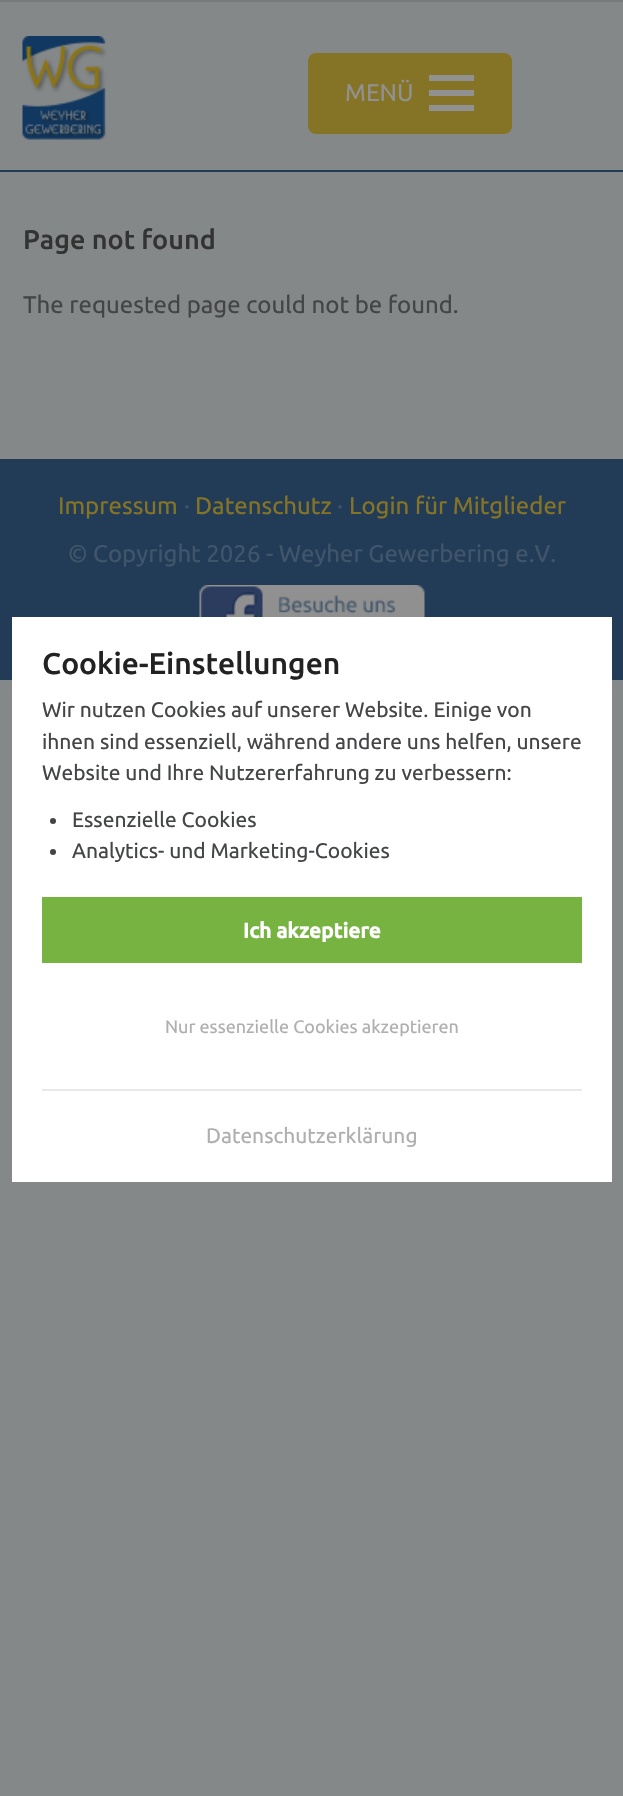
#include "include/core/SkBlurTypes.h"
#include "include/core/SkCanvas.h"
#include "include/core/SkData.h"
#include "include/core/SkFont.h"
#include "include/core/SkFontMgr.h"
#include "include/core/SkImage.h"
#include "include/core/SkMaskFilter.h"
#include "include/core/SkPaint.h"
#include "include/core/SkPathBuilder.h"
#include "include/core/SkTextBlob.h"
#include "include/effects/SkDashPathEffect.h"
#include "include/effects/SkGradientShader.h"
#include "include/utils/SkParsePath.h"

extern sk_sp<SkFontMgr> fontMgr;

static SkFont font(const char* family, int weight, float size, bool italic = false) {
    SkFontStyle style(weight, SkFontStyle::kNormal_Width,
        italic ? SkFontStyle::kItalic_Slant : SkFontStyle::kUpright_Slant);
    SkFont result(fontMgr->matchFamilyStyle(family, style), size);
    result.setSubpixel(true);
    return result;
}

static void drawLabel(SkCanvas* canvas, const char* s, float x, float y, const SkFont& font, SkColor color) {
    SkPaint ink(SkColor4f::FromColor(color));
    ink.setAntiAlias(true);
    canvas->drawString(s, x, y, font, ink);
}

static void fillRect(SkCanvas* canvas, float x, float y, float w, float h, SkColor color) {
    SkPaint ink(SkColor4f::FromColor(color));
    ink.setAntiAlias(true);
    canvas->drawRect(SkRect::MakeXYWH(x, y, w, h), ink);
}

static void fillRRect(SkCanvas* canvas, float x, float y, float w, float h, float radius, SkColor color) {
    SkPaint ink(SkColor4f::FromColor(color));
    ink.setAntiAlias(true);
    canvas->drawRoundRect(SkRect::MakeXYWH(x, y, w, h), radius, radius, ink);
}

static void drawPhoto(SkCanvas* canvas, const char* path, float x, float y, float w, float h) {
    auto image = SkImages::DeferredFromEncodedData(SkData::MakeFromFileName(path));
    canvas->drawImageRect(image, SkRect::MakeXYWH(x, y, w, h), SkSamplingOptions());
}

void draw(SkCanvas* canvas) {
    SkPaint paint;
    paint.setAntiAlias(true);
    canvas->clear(0xFF858889);
    fillRect(canvas, 0, 170, 623, 2, 0xFF223C58);
    drawPhoto(canvas, "assets/img1.png", 22, 36, 85, 104);
    fillRRect(canvas, 308, 53, 204, 81, 8, 0xFF857326);
    SkFont font1 = font("Ubuntu", 400, 24);
    drawLabel(canvas, "MENÜ", 345, 101, font1, 0xFF919191);
    fillRect(canvas, 429, 75, 45, 6, 0xFF919191);
    fillRect(canvas, 429, 90, 45, 6, 0xFF919191);
    fillRect(canvas, 429, 105, 45, 6, 0xFF919191);
    SkFont font2 = font("Ubuntu", 500, 27);
    drawLabel(canvas, "Page not found", 23, 249, font2, 0xFF333333);
    drawLabel(canvas, "The requested page could not be found.", 23, 313, font1, 0xFF444547);
    fillRect(canvas, 0, 459, 623, 221, 0xFF223C58);
    drawLabel(canvas, "Impressum", 58, 514, font1, 0xFF857326);
    drawLabel(canvas, "·", 184, 514, font1, 0xFF41556A);
    drawLabel(canvas, "Datenschutz", 195, 514, font1, 0xFF857326);
    drawLabel(canvas, "·", 337, 514, font1, 0xFF41556A);
    drawLabel(canvas, "Login für Mitglieder", 349, 514, font1, 0xFF857326);
    drawLabel(canvas, "© Copyright 2026 - Weyher Gewerbering e.V.", 68, 562, font1, 0xFF41556A);
    drawPhoto(canvas, "assets/img2.png", 199, 585, 226, 32);
    fillRect(canvas, 0, 0, 623, 2, 0xFF787A7B);
    fillRect(canvas, 12, 617, 600, 565, 0xFFFFFFFF);
    SkFont font3 = font("Ubuntu", 500, 30);
    drawLabel(canvas, "Cookie-Einstellungen", 42, 674, font3, 0xFF222222);
    SkFont font4 = font("Ubuntu", 400, 21);
    drawLabel(canvas, "Wir nutzen Cookies auf unserer Website. Einige von", 42, 717, font4, 0xFF444547);
    drawLabel(canvas, "ihnen sind essenziell, während andere uns helfen, unsere", 42, 749, font4, 0xFF444547);
    drawLabel(canvas, "Website und Ihre Nutzererfahrung zu verbessern:", 42, 780, font4, 0xFF444547);
    paint.setColor(0xFF444444);
    canvas->drawCircle(53, 821, 3, paint);
    drawLabel(canvas, "Essenzielle Cookies", 72, 827, font4, 0xFF444547);
    canvas->drawCircle(53, 852, 3, paint);
    drawLabel(canvas, "Analytics- und Marketing-Cookies", 72, 858, font4, 0xFF444547);
    fillRect(canvas, 42, 897, 540, 66, 0xFF77B340);
    SkFont font5 = font("Ubuntu", 700, 21);
    drawLabel(canvas, "Ich akzeptiere", 243, 938, font5, 0xFFFFFFFF);
    SkFont font6 = font("Ubuntu", 400, 18);
    drawLabel(canvas, "Nur essenzielle Cookies akzeptieren", 165, 1033, font6, 0xFFAFAFAF);
    fillRect(canvas, 42, 1089, 540, 2, 0xFFE9E9E9);
    drawLabel(canvas, "Datenschutzerklärung", 206, 1143, font4, 0xFFAFAFAF);
}
